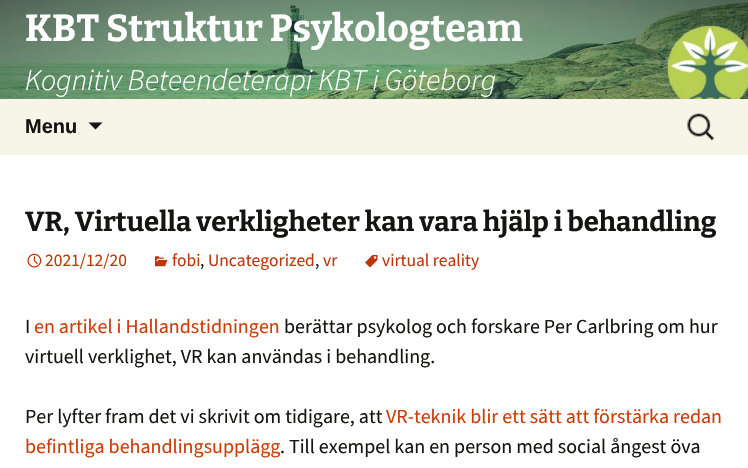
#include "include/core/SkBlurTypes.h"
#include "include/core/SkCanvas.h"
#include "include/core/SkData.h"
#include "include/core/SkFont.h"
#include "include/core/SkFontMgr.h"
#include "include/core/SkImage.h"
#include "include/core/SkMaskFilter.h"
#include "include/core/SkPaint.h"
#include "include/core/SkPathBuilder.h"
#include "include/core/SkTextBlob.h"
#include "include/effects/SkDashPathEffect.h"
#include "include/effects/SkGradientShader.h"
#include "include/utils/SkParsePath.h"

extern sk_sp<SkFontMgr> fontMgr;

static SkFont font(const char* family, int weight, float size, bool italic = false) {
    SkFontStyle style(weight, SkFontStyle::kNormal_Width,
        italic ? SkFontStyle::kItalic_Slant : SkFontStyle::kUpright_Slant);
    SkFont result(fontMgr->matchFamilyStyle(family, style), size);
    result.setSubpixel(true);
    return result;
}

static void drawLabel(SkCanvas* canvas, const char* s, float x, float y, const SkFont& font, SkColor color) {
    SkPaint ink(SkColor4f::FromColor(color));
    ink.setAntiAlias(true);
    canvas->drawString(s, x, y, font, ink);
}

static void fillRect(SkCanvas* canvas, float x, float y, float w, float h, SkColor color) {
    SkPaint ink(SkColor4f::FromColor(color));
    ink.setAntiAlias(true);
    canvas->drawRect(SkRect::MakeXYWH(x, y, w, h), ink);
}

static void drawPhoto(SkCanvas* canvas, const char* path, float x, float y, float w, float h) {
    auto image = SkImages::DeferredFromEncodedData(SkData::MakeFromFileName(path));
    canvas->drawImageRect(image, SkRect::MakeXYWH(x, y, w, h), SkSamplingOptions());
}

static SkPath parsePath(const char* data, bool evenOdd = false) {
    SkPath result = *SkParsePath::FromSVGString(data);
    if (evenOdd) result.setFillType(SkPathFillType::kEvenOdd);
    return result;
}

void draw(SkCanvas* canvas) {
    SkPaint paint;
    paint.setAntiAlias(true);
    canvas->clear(0xFFFFFFFF);
    drawPhoto(canvas, "assets/img1.png", 0, 0, 748, 99);
    SkFont font1 = font("Bitter", 100, 37.5f);
    drawLabel(canvas, "KBT Struktur Psykologteam", 25, 41, font1, 0xFFFFFFFF);
    SkFont font2 = font("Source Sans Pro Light", 300, 30, true);
    drawLabel(canvas, "Kognitiv Beteendeterapi KBT i Göteborg", 25, 90, font2, 0xFFFFFFFF);
    fillRect(canvas, 0, 99, 748, 56, 0xFFF7F5E7);
    SkFont font3 = font("Liberation Sans", 700, 20);
    drawLabel(canvas, "Menu", 25, 133, font3, 0xFF141412);
    paint.setColor(0xFF141412);
    canvas->drawPath(parsePath("M88.5 122.5L95.5 129.5L102.5 122.5Z"), paint);
    drawPhoto(canvas, "assets/img2.png", 687, 113, 27, 28);
    SkFont font4 = font("Bitter", 100, 27.5f);
    drawLabel(canvas, "VR, Virtuella verkligheter kan vara hjälp i behandling", 25, 231, font4, 0xFF141412);
    drawPhoto(canvas, "assets/img3.png", 27, 253, 15, 15);
    SkFont font5 = font("Source Sans Pro", 400, 17.5f);
    drawLabel(canvas, "2021/12/20", 45, 266, font5, 0xFFBC360A);
    drawPhoto(canvas, "assets/img4.png", 155, 256, 13, 11);
    drawLabel(canvas, "fobi", 172, 266, font5, 0xFFBC360A);
    drawLabel(canvas, "Uncategorized", 208, 266, font5, 0xFFBC360A);
    drawLabel(canvas, "vr", 323, 266, font5, 0xFFBC360A);
    drawLabel(canvas, ",", 200, 266, font5, 0xFF141412);
    drawLabel(canvas, ",", 315, 266, font5, 0xFF141412);
    drawPhoto(canvas, "assets/img5.png", 365, 255, 13, 13);
    drawLabel(canvas, "virtual reality", 382, 266, font5, 0xFFBC360A);
    SkFont font6 = font("Source Sans Pro", 400, 20);
    drawLabel(canvas, "I", 25, 333, font6, 0xFF141412);
    drawLabel(canvas, "en artikel i Hallandstidningen", 34, 333, font6, 0xFFCA3C08);
    drawLabel(canvas, "berättar psykolog och forskare Per Carlbring om hur", 284, 333, font6, 0xFF141412);
    drawLabel(canvas, "virtuell verklighet, VR kan användas i behandling.", 25, 363, font6, 0xFF141412);
    drawLabel(canvas, "Per lyfter fram det vi skrivit om tidigare, att", 25, 423, font6, 0xFF141412);
    drawLabel(canvas, "VR-teknik blir ett sätt att förstärka redan", 386, 423, font6, 0xFFCA3C08);
    drawLabel(canvas, "befintliga behandlingsupplägg", 25, 453, font6, 0xFFCA3C08);
    drawLabel(canvas, ". Till exempel kan en person med social ångest öva", 280, 453, font6, 0xFF141412);
}
